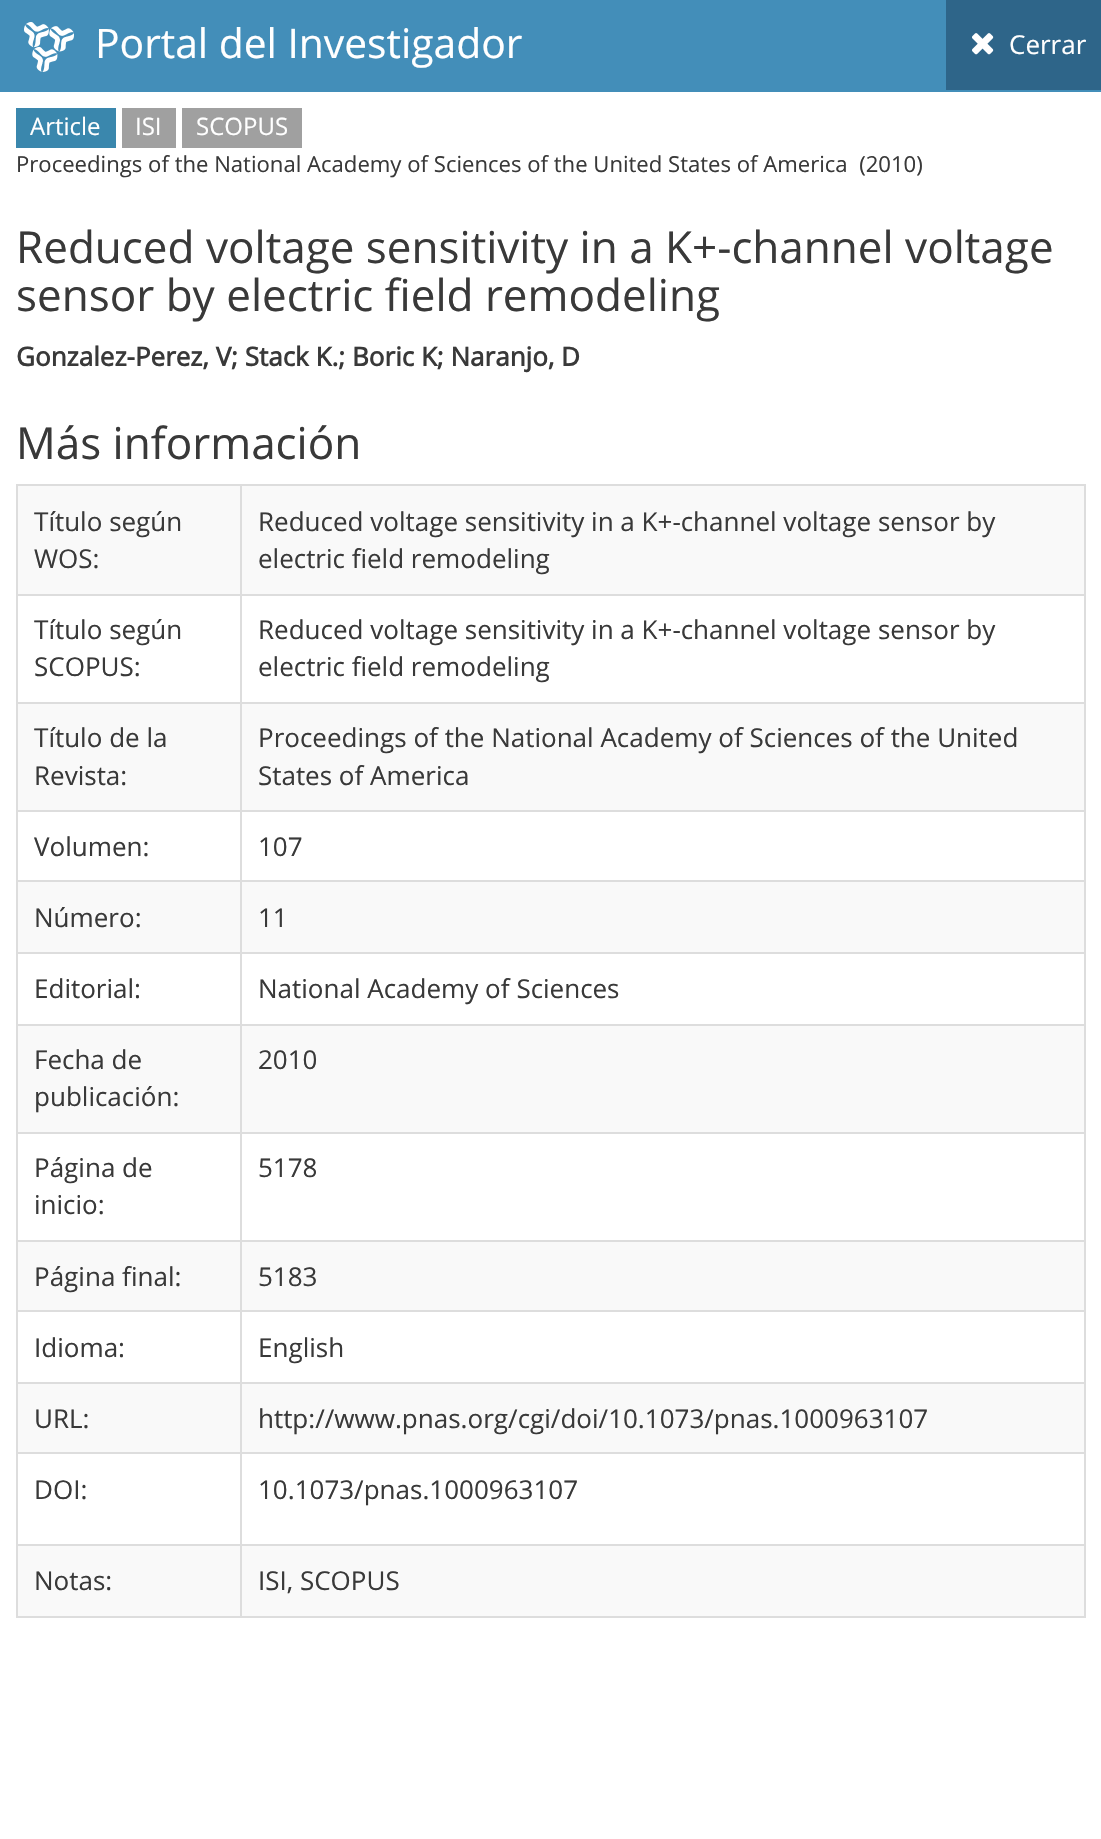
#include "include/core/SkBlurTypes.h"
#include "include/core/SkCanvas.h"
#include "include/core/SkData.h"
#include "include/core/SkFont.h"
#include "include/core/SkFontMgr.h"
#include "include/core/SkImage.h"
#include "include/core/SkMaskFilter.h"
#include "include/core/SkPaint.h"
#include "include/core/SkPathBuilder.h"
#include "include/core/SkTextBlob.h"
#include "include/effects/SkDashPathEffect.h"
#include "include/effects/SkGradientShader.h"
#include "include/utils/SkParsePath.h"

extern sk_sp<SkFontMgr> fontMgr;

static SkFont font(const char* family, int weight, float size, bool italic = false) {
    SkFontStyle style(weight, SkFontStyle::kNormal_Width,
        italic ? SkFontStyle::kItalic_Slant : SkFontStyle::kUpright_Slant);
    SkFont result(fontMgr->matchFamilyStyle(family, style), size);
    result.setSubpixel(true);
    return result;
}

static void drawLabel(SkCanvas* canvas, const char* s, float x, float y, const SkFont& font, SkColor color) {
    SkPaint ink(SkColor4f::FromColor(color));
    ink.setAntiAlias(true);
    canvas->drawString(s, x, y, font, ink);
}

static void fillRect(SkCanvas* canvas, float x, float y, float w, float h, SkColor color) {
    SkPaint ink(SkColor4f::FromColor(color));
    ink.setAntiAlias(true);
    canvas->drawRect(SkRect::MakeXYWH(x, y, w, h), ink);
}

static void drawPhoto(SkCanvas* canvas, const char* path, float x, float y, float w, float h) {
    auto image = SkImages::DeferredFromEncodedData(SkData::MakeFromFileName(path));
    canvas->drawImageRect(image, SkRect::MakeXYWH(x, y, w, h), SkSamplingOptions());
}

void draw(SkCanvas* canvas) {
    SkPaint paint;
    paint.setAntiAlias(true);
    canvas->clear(0xFFFFFFFF);
    fillRect(canvas, 0, 0, 1101, 92, 0xFF438EB9);
    drawPhoto(canvas, "assets/img1.png", 24, 22, 50, 50);
    SkFont font1 = font("Open Sans", 400, 40.75f);
    drawLabel(canvas, "Portal del Investigador", 95, 58, font1, 0xFFFFFFFF);
    fillRect(canvas, 946, 0, 155, 90, 0xFF2E6589);
    drawPhoto(canvas, "assets/img2.png", 972, 33, 22, 22);
    SkFont font2 = font("Open Sans", 400, 26);
    drawLabel(canvas, "Cerrar", 1009, 54, font2, 0xFFFFFFFF);
    fillRect(canvas, 16, 108, 100, 40, 0xFF3A87AD);
    SkFont font3 = font("Open Sans", 400, 24);
    drawLabel(canvas, "Article", 30, 135, font3, 0xFFFFFFFF);
    fillRect(canvas, 122, 108, 54, 40, 0xFFA0A0A0);
    drawLabel(canvas, "ISI", 135, 135, font3, 0xFFFFFFFF);
    fillRect(canvas, 182, 108, 120, 40, 0xFFA0A0A0);
    drawLabel(canvas, "SCOPUS", 196, 135, font3, 0xFFFFFFFF);
    SkFont font4 = font("Open Sans", 400, 22.1f);
    drawLabel(canvas, "Proceedings of the National Academy of Sciences of the United States of America  (2010)", 16, 172, font4, 0xFF393939);
    SkFont font5 = font("Open Sans", 400, 44);
    drawLabel(canvas, "Reduced voltage sensitivity in a K+-channel voltage", 16, 263, font5, 0xFF393939);
    drawLabel(canvas, "sensor by electric field remodeling", 16, 311, font5, 0xFF393939);
    SkFont font6 = font("Open Sans", 700, 26);
    drawLabel(canvas, "Gonzalez-Perez, V; Stack K.; Boric K; Naranjo, D", 16, 366, font6, 0xFF393939);
    drawLabel(canvas, "Más información", 16, 459, font5, 0xFF393939);
    fillRect(canvas, 16, 484, 1070, 2, 0xFFDDDDDD);
    fillRect(canvas, 1084, 484, 2, 1134, 0xFFDDDDDD);
    fillRect(canvas, 16, 1616, 1070, 2, 0xFFDDDDDD);
    fillRect(canvas, 16, 484, 2, 1134, 0xFFDDDDDD);
    fillRect(canvas, 18, 486, 1066, 108, 0xFFF9F9F9);
    drawLabel(canvas, "Título según", 34, 531, font2, 0xFF393939);
    drawLabel(canvas, "WOS:", 34, 568, font2, 0xFF393939);
    fillRect(canvas, 240, 594, 846, 2, 0xFFDDDDDD);
    fillRect(canvas, 240, 702, 846, 2, 0xFFDDDDDD);
    fillRect(canvas, 18, 704, 1066, 106, 0xFFF9F9F9);
    fillRect(canvas, 240, 810, 846, 2, 0xFFDDDDDD);
    fillRect(canvas, 240, 880, 846, 2, 0xFFDDDDDD);
    fillRect(canvas, 18, 882, 1066, 70, 0xFFF9F9F9);
    fillRect(canvas, 240, 952, 846, 2, 0xFFDDDDDD);
    fillRect(canvas, 240, 1024, 846, 2, 0xFFDDDDDD);
    fillRect(canvas, 18, 1026, 1066, 106, 0xFFF9F9F9);
    fillRect(canvas, 240, 1132, 846, 2, 0xFFDDDDDD);
    fillRect(canvas, 240, 1240, 846, 2, 0xFFDDDDDD);
    fillRect(canvas, 18, 1242, 1066, 68, 0xFFF9F9F9);
    fillRect(canvas, 240, 1310, 846, 2, 0xFFDDDDDD);
    fillRect(canvas, 240, 1382, 846, 2, 0xFFDDDDDD);
    fillRect(canvas, 18, 1384, 1066, 68, 0xFFF9F9F9);
    fillRect(canvas, 240, 1452, 846, 2, 0xFFDDDDDD);
    fillRect(canvas, 240, 1544, 846, 2, 0xFFDDDDDD);
    fillRect(canvas, 18, 1546, 1066, 70, 0xFFF9F9F9);
    fillRect(canvas, 240, 1544, 2, 74, 0xFFDDDDDD);
    fillRect(canvas, 16, 1544, 226, 2, 0xFFDDDDDD);
    fillRect(canvas, 240, 1452, 2, 94, 0xFFDDDDDD);
    fillRect(canvas, 16, 1452, 226, 2, 0xFFDDDDDD);
    fillRect(canvas, 240, 1382, 2, 72, 0xFFDDDDDD);
    fillRect(canvas, 16, 1382, 226, 2, 0xFFDDDDDD);
    fillRect(canvas, 240, 1310, 2, 74, 0xFFDDDDDD);
    fillRect(canvas, 16, 1310, 226, 2, 0xFFDDDDDD);
    fillRect(canvas, 240, 1240, 2, 72, 0xFFDDDDDD);
    fillRect(canvas, 16, 1240, 226, 2, 0xFFDDDDDD);
    fillRect(canvas, 240, 1132, 2, 110, 0xFFDDDDDD);
    fillRect(canvas, 16, 1132, 226, 2, 0xFFDDDDDD);
    fillRect(canvas, 240, 1024, 2, 110, 0xFFDDDDDD);
    fillRect(canvas, 16, 1024, 226, 2, 0xFFDDDDDD);
    fillRect(canvas, 240, 952, 2, 74, 0xFFDDDDDD);
    fillRect(canvas, 16, 952, 226, 2, 0xFFDDDDDD);
    fillRect(canvas, 240, 880, 2, 74, 0xFFDDDDDD);
    fillRect(canvas, 16, 880, 226, 2, 0xFFDDDDDD);
    fillRect(canvas, 240, 810, 2, 72, 0xFFDDDDDD);
    fillRect(canvas, 16, 810, 226, 2, 0xFFDDDDDD);
    fillRect(canvas, 240, 702, 2, 110, 0xFFDDDDDD);
    fillRect(canvas, 16, 702, 226, 2, 0xFFDDDDDD);
    fillRect(canvas, 240, 594, 2, 110, 0xFFDDDDDD);
    fillRect(canvas, 16, 594, 226, 2, 0xFFDDDDDD);
    fillRect(canvas, 240, 484, 2, 112, 0xFFDDDDDD);
    drawLabel(canvas, "Reduced voltage sensitivity in a K+-channel voltage sensor by", 258, 531, font2, 0xFF393939);
    drawLabel(canvas, "electric field remodeling", 258, 568, font2, 0xFF393939);
    drawLabel(canvas, "Título según", 34, 639, font2, 0xFF393939);
    drawLabel(canvas, "SCOPUS:", 34, 676, font2, 0xFF393939);
    drawLabel(canvas, "Reduced voltage sensitivity in a K+-channel voltage sensor by", 258, 639, font2, 0xFF393939);
    drawLabel(canvas, "electric field remodeling", 258, 676, font2, 0xFF393939);
    drawLabel(canvas, "Título de la", 34, 747, font2, 0xFF393939);
    drawLabel(canvas, "Revista:", 34, 785, font2, 0xFF393939);
    drawLabel(canvas, "Proceedings of the National Academy of Sciences of the United", 258, 747, font2, 0xFF393939);
    drawLabel(canvas, "States of America", 258, 785, font2, 0xFF393939);
    drawLabel(canvas, "Volumen:", 34, 856, font2, 0xFF393939);
    drawLabel(canvas, "107", 258, 856, font2, 0xFF393939);
    drawLabel(canvas, "Número:", 34, 927, font2, 0xFF393939);
    drawLabel(canvas, "11", 258, 927, font2, 0xFF393939);
    drawLabel(canvas, "Editorial:", 34, 998, font2, 0xFF393939);
    drawLabel(canvas, "National Academy of Sciences", 258, 998, font2, 0xFF393939);
    drawLabel(canvas, "Fecha de", 34, 1069, font2, 0xFF393939);
    drawLabel(canvas, "publicación:", 34, 1106, font2, 0xFF393939);
    drawLabel(canvas, "2010", 258, 1069, font2, 0xFF393939);
    drawLabel(canvas, "Página de", 34, 1177, font2, 0xFF393939);
    drawLabel(canvas, "inicio:", 34, 1214, font2, 0xFF393939);
    drawLabel(canvas, "5178", 258, 1177, font2, 0xFF393939);
    drawLabel(canvas, "Página final:", 34, 1286, font2, 0xFF393939);
    drawLabel(canvas, "5183", 258, 1286, font2, 0xFF393939);
    drawLabel(canvas, "Idioma:", 34, 1357, font2, 0xFF393939);
    drawLabel(canvas, "English", 258, 1357, font2, 0xFF393939);
    drawLabel(canvas, "URL:", 34, 1428, font2, 0xFF393939);
    drawLabel(canvas, "http://www.pnas.org/cgi/doi/10.1073/pnas.1000963107", 258, 1428, font2, 0xFF393939);
    drawLabel(canvas, "DOI:", 34, 1499, font2, 0xFF393939);
    drawLabel(canvas, "10.1073/pnas.1000963107", 258, 1499, font2, 0xFF393939);
    drawLabel(canvas, "Notas:", 34, 1590, font2, 0xFF393939);
    drawLabel(canvas, "ISI, SCOPUS", 258, 1590, font2, 0xFF393939);
}
